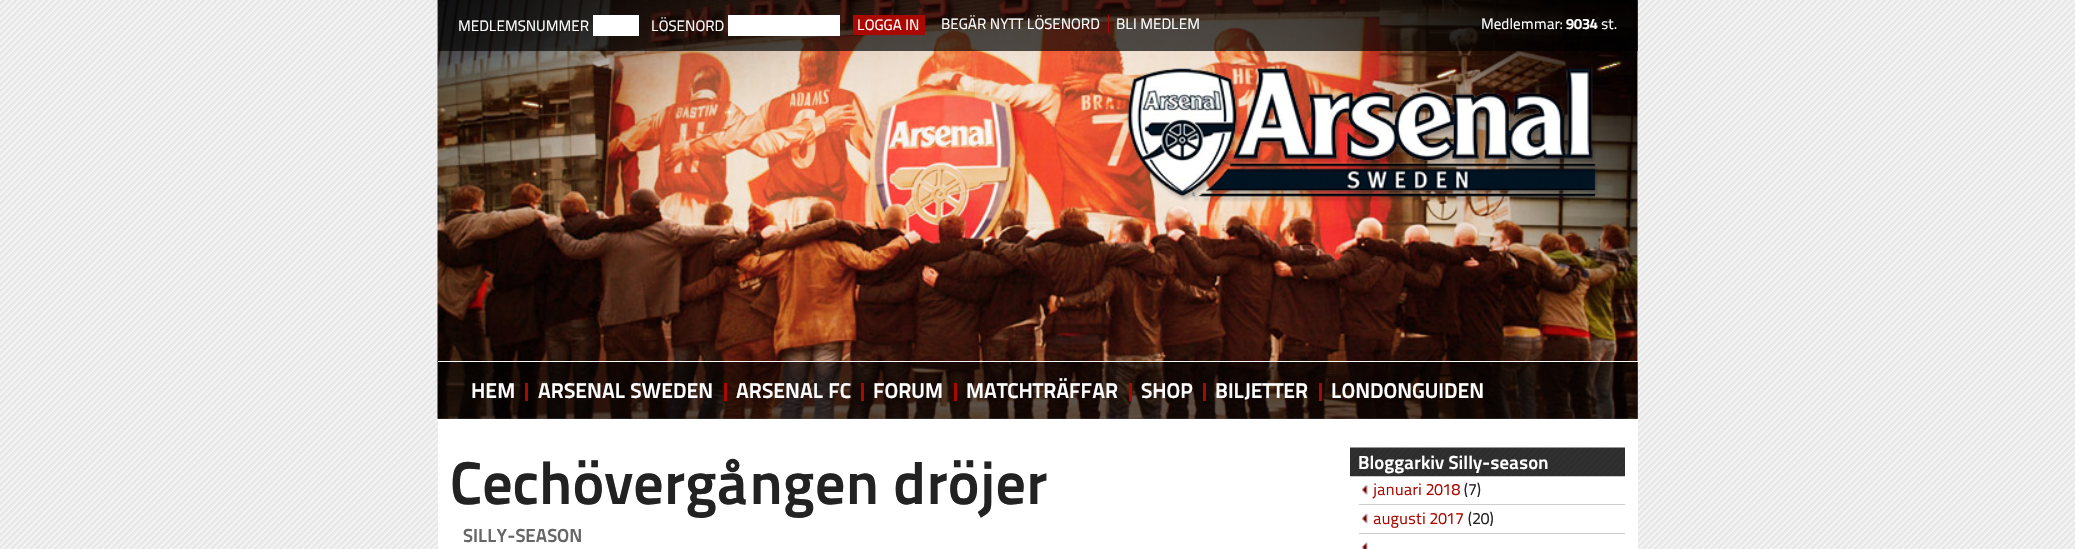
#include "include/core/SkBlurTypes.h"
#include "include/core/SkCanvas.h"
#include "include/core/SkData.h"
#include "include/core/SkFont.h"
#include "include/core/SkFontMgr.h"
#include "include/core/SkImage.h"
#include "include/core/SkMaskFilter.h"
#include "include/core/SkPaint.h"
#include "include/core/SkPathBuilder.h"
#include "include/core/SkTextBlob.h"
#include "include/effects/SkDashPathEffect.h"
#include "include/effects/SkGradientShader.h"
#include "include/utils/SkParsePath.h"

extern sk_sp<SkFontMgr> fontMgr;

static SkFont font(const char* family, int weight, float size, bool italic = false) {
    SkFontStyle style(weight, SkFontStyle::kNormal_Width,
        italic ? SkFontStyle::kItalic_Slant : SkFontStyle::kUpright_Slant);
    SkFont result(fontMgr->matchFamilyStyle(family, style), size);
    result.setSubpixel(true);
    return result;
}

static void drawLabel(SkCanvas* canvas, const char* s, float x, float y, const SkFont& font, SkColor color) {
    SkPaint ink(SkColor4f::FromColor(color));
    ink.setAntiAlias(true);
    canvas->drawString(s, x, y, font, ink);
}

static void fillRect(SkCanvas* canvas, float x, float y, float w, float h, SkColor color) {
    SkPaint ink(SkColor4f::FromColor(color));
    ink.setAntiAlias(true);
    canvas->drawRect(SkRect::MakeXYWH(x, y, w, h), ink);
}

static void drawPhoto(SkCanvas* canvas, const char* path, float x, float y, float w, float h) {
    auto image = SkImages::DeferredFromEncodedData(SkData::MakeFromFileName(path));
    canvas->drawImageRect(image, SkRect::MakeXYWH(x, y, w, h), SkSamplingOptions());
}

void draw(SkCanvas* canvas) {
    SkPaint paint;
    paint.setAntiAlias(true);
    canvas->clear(0xFFFFFFFF);
    drawPhoto(canvas, "assets/img1.png", 0, 0, 2075, 549);
    fillRect(canvas, 438, 0, 1200, 549, 0xFFFFFFFF);
    drawPhoto(canvas, "assets/img2.png", 437, 0, 1201, 419);
    fillRect(canvas, 438, 0, 1200, 51, 0xAD000000);
    SkFont font1 = font("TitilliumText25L", 400, 15);
    drawLabel(canvas, "MEDLEMSNUMMER", 458, 31, font1, 0xFFFFFFFF);
    fillRect(canvas, 593, 15, 46, 21, 0xFFFFFFFF);
    drawLabel(canvas, "LÖSENORD", 651, 31, font1, 0xFFFFFFFF);
    fillRect(canvas, 728, 15, 112, 21, 0xFFFFFFFF);
    fillRect(canvas, 853, 15, 72, 20, 0xFFA90900);
    drawLabel(canvas, "LOGGA IN", 857, 30, font1, 0xFFFFFFFF);
    fillRect(canvas, 1108, 15, 1, 18, 0xFFA90900);
    drawLabel(canvas, "BEGÄR NYTT LÖSENORD", 941, 29, font1, 0xFFFFFFFF);
    drawLabel(canvas, "BLI MEDLEM", 1116, 29, font1, 0xFFFFFFFF);
    drawLabel(canvas, "Medlemmar:", 1481, 29, font1, 0xFFFFFFFF);
    SkFont font2 = font("TitilliumText25L", 800, 15);
    drawLabel(canvas, "9034", 1566, 29, font2, 0xFFFFFFFF);
    drawLabel(canvas, "st.", 1601, 29, font1, 0xFFFFFFFF);
    drawPhoto(canvas, "assets/img3.png", 1127, 68, 472, 134);
    fillRect(canvas, 438, 362, 1200, 57, 0x99000000);
    fillRect(canvas, 438, 361, 1200, 1, 0xFFFFFFFF);
    fillRect(canvas, 525, 383, 3, 18, 0xFFA90900);
    SkFont font3 = font("TitilliumText25L", 800, 21.25f);
    drawLabel(canvas, "HEM", 471, 398, font3, 0xFFFFFFFF);
    fillRect(canvas, 724, 383, 3, 18, 0xFFA90900);
    drawLabel(canvas, "ARSENAL SWEDEN", 538, 398, font3, 0xFFFFFFFF);
    fillRect(canvas, 861, 383, 3, 18, 0xFFA90900);
    drawLabel(canvas, "ARSENAL FC", 736, 398, font3, 0xFFFFFFFF);
    fillRect(canvas, 954, 383, 3, 18, 0xFFA90900);
    drawLabel(canvas, "FORUM", 873, 398, font3, 0xFFFFFFFF);
    fillRect(canvas, 1129, 383, 3, 18, 0xFFA90900);
    drawLabel(canvas, "MATCHTRÄFFAR", 966, 398, font3, 0xFFFFFFFF);
    fillRect(canvas, 1203, 383, 3, 18, 0xFFA90900);
    drawLabel(canvas, "SHOP", 1141, 398, font3, 0xFFFFFFFF);
    fillRect(canvas, 1319, 383, 3, 18, 0xFFA90900);
    drawLabel(canvas, "BILJETTER", 1215, 398, font3, 0xFFFFFFFF);
    drawLabel(canvas, "LONDONGUIDEN", 1331, 398, font3, 0xFFFFFFFF);
    SkFont font4 = font("TitilliumText25L", 800, 60.1f);
    drawLabel(canvas, "Cechövergången dröjer", 450, 504, font4, 0xFF222222);
    SkFont font5 = font("TitilliumText25L", 800, 18.75f);
    drawLabel(canvas, "SILLY-SEASON", 463, 542, font5, 0xFF666666);
    drawPhoto(canvas, "assets/img4.png", 1350, 447, 275, 30);
    drawLabel(canvas, "Bloggarkiv Silly-season", 1358, 469, font5, 0xFFFFFFFF);
    drawPhoto(canvas, "assets/img5.png", 1361, 485, 7, 10);
    fillRect(canvas, 1359, 504, 266, 1, 0xFFCCCCCC);
    SkFont font6 = font("TitilliumText25L", 400, 16.25f);
    drawLabel(canvas, "januari 2018", 1373, 495, font6, 0xFFA90900);
    drawLabel(canvas, "(7)", 1464, 495, font6, 0xFF222222);
    drawPhoto(canvas, "assets/img6.png", 1361, 513, 7, 11);
    fillRect(canvas, 1359, 533, 266, 1, 0xFFCCCCCC);
    drawLabel(canvas, "augusti 2017", 1373, 524, font6, 0xFFA90900);
    drawLabel(canvas, "(20)", 1468, 524, font6, 0xFF222222);
    drawPhoto(canvas, "assets/img7.png", 1361, 542, 7, 7);
}
